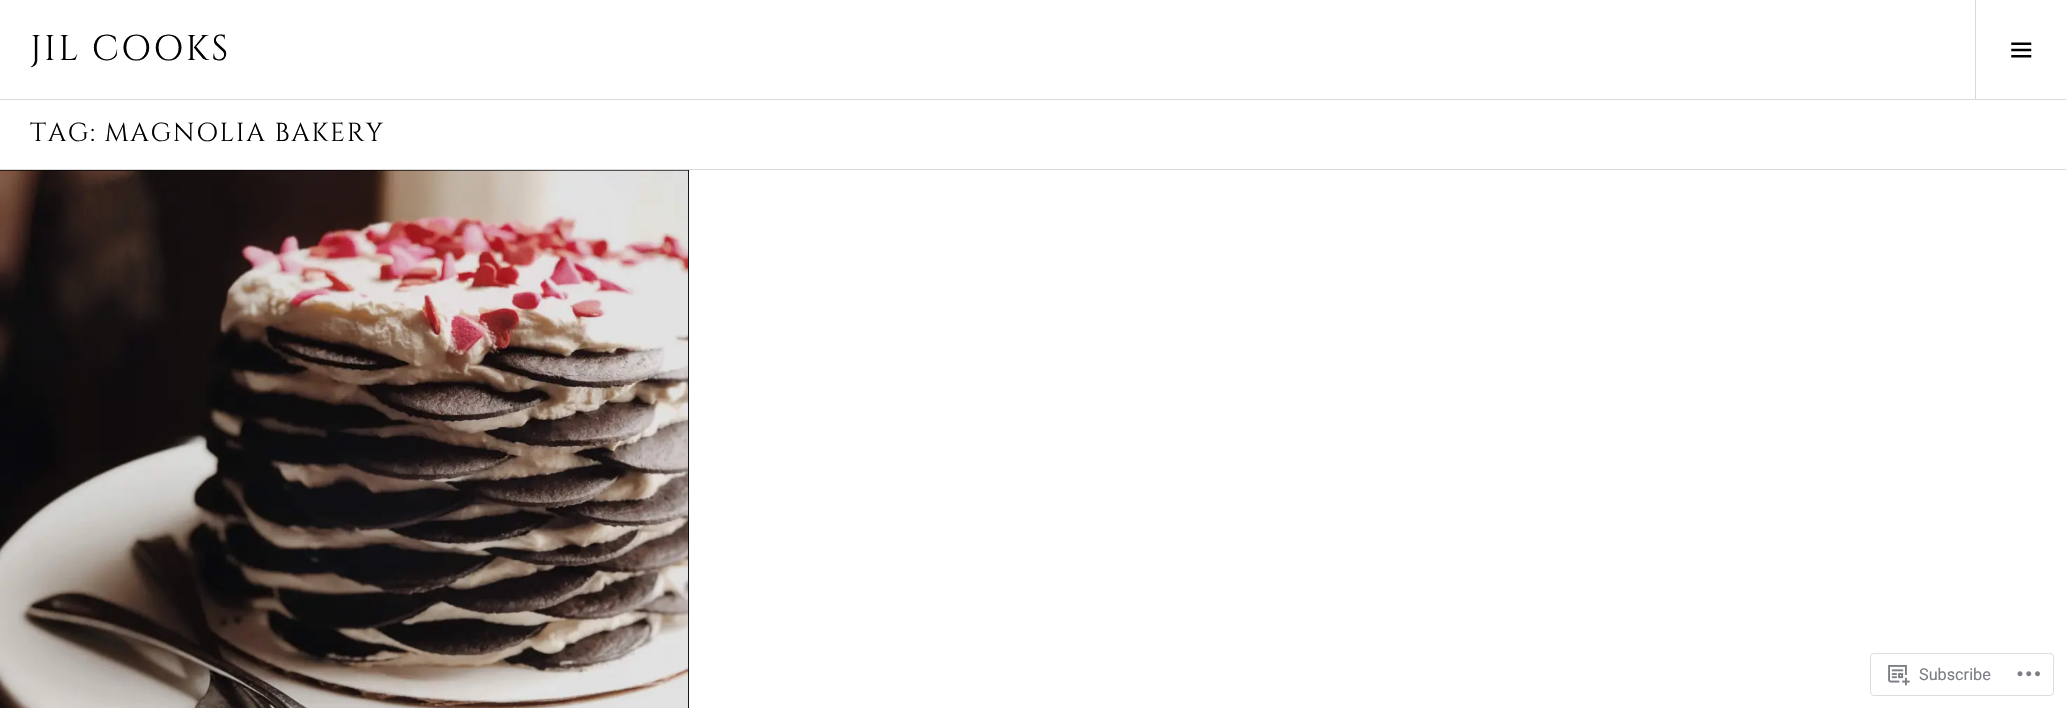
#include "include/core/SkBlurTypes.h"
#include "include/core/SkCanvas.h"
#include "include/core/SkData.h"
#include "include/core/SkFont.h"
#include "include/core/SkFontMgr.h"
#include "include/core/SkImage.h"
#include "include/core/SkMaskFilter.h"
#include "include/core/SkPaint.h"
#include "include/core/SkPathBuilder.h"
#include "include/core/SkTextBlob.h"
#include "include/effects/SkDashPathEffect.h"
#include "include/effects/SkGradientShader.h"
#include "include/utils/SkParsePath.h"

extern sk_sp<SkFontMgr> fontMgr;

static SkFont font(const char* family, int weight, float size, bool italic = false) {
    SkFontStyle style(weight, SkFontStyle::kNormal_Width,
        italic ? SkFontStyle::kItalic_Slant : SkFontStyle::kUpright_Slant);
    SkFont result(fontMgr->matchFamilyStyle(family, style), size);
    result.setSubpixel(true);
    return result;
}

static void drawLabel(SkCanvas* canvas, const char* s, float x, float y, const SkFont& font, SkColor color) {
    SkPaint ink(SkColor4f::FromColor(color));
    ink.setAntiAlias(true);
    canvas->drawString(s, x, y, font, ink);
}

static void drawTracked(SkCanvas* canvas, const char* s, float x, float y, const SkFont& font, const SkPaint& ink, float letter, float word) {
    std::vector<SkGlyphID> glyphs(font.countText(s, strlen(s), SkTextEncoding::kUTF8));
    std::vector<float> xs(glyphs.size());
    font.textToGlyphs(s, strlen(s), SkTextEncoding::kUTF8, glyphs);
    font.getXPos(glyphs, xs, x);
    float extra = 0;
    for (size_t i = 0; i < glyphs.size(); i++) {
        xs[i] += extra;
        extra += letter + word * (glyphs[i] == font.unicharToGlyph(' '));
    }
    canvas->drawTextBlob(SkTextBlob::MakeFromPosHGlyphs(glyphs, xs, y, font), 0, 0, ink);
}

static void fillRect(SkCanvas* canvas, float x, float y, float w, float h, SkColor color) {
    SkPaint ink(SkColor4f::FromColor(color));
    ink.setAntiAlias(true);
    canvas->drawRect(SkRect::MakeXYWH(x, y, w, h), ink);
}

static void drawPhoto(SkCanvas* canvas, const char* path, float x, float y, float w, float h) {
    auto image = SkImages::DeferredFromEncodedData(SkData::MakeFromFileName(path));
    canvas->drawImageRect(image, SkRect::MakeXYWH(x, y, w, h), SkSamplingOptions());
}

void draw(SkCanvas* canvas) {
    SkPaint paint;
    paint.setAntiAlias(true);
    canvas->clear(0xFFFFFFFF);
    fillRect(canvas, 0, 99, 2066, 1, 0xFFD9D9D9);
    SkFont font1 = font("Cinzel", 400, 35.75f);
    paint.setColor(0xFF000000);
    drawTracked(canvas, "JIL COOKS", 30, 60, font1, paint, 2.25f, 0);
    fillRect(canvas, 1975, 0, 1, 99, 0xFFD9D9D9);
    drawPhoto(canvas, "assets/img1.png", 2011, 42, 21, 16);
    fillRect(canvas, 0, 169, 2066, 1, 0xFFD9D9D9);
    SkFont font2 = font("Cinzel", 400, 26);
    drawTracked(canvas, "TAG: MAGNOLIA BAKERY", 30, 141, font2, paint, 1.6f, 0);
    fillRect(canvas, 0, 170, 689, 538, 0xFF000000);
    drawPhoto(canvas, "assets/img2.png", 0, 170, 689, 538);
    paint.setStroke(true);
    paint.setStrokeWidth(1);
    paint.setColor(0xFFDDDDDF);
    canvas->drawRoundRect(SkRect::MakeXYWH(1870.5f, 653.5f, 183, 42), 3.5f, 3.5f, paint);
    drawPhoto(canvas, "assets/img3.png", 1888, 665, 22, 21);
    SkFont font3 = font("Roboto", 400, 16.25f);
    drawLabel(canvas, "Subscribe", 1919, 680, font3, 0xFF7B7F85);
    drawPhoto(canvas, "assets/img4.png", 2017, 671, 23, 6);
}
